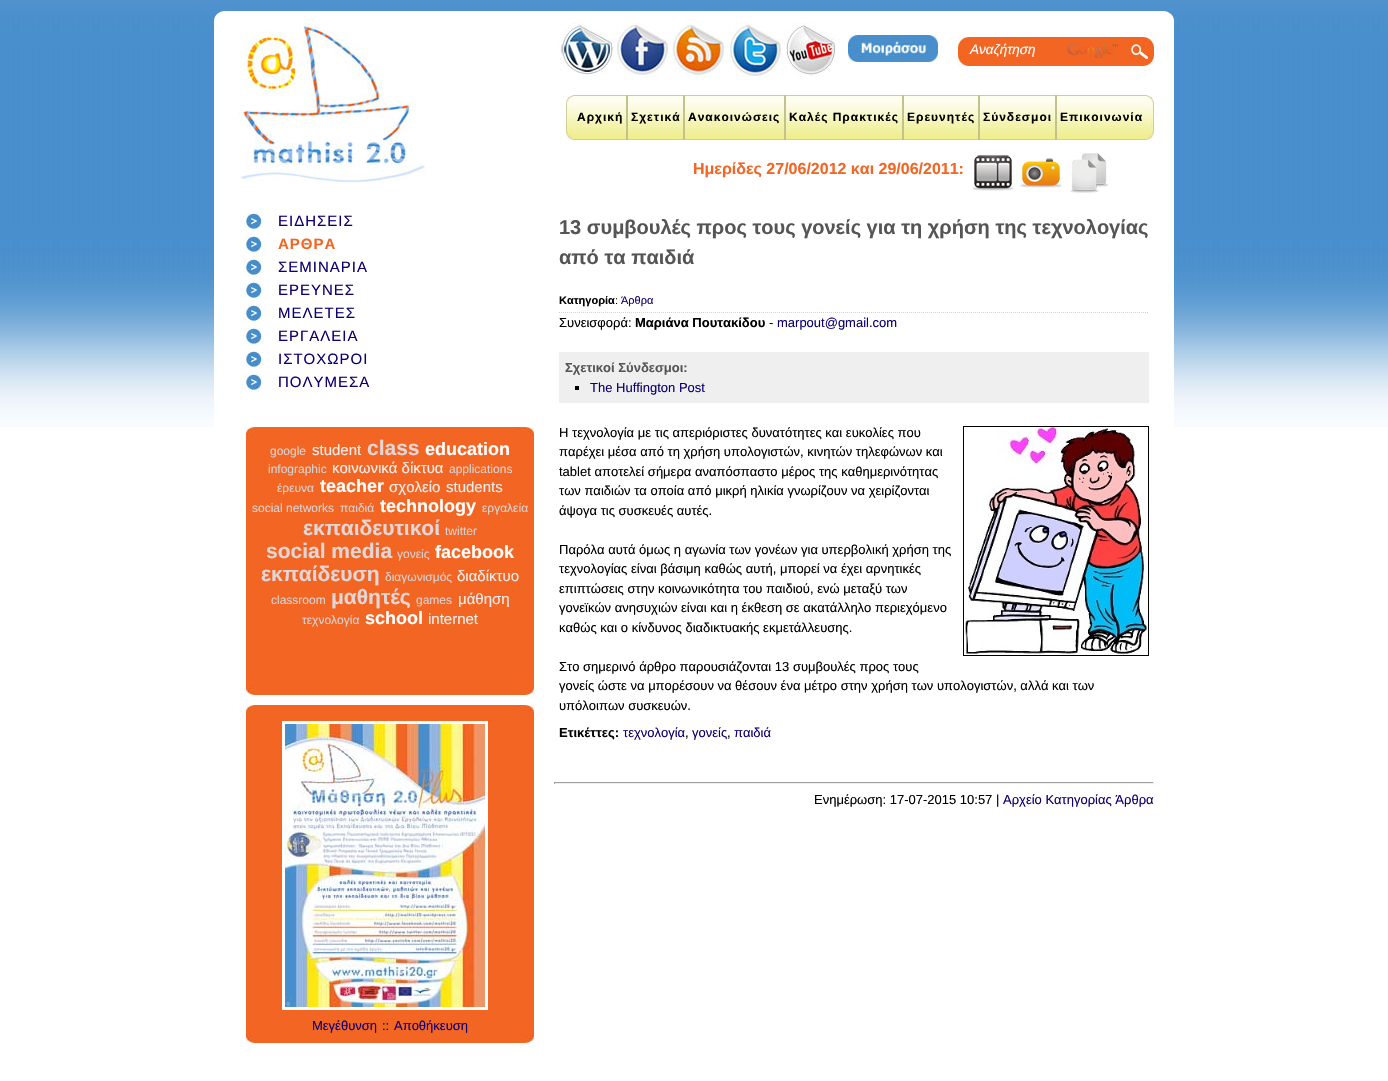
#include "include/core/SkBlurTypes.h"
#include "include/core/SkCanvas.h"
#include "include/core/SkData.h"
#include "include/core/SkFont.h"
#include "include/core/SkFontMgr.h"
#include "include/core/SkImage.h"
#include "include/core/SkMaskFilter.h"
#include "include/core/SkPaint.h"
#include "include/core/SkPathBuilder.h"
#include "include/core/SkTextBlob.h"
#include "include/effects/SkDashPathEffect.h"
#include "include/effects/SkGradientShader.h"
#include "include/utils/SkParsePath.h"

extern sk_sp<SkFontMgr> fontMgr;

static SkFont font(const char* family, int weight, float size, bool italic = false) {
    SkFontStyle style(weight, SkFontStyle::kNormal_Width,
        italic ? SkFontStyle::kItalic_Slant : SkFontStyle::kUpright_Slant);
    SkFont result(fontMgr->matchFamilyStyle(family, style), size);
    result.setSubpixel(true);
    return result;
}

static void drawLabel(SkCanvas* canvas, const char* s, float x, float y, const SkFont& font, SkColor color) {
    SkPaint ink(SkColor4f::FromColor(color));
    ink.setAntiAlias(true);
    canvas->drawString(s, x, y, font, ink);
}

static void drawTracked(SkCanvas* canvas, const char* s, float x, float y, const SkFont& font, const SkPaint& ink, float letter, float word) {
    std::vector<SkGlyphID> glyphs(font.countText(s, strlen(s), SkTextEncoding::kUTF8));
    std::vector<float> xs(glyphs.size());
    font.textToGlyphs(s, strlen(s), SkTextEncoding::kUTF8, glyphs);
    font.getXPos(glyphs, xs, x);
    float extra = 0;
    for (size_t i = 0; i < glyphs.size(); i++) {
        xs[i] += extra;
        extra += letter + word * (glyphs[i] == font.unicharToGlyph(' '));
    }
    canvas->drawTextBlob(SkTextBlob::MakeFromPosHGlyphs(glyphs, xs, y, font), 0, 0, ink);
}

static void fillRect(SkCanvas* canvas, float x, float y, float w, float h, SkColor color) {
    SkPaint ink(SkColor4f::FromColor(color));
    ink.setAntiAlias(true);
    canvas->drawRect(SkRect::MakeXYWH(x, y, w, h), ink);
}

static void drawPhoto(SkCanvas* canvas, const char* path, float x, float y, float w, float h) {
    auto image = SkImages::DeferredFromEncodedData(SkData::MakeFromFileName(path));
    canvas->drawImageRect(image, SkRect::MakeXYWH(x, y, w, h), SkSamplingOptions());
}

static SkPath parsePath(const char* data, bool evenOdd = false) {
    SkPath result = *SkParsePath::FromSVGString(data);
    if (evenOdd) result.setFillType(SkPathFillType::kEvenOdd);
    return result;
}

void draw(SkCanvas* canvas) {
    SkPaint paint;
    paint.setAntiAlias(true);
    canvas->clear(0xFFFFFFFF);
    drawPhoto(canvas, "assets/img1.png", 0, 0, 1388, 427);
    drawPhoto(canvas, "assets/img2.png", 214, 11, 960, 11);
    fillRect(canvas, 214, 22, 960, 405, 0xFFFFFFFF);
    drawPhoto(canvas, "assets/img3.png", 239, 22, 189, 160);
    drawPhoto(canvas, "assets/img4.png", 559, 22, 56, 55);
    drawPhoto(canvas, "assets/img5.png", 615, 22, 56, 55);
    drawPhoto(canvas, "assets/img6.png", 671, 23, 56, 54);
    drawPhoto(canvas, "assets/img7.png", 727, 22, 56, 55);
    drawPhoto(canvas, "assets/img8.png", 783, 22, 56, 55);
    drawPhoto(canvas, "assets/img9.png", 848, 35, 90, 27);
    drawPhoto(canvas, "assets/img10.png", 958, 37, 196, 29);
    fillRect(canvas, 968, 41, 6, 4, 0xFFF26522);
    drawPhoto(canvas, "assets/img11.png", 1067, 43, 51, 15);
    paint.setStroke(true);
    paint.setStrokeWidth(1);
    paint.setColor(0xFFF26522);
    canvas->drawRect(SkRect::MakeXYWH(967.5f, 40.5f, 155, 18), paint);
    SkFont font1 = font("Liberation Sans", 400, 13.5f, true);
    drawLabel(canvas, "Αναζήτηση", 970, 54, font1, 0xFFFFFFFF);
    drawPhoto(canvas, "assets/img12.png", 1128, 41, 22, 20);
    drawPhoto(canvas, "assets/img13.png", 566, 95, 8, 45);
    drawPhoto(canvas, "assets/img14.png", 574, 95, 52, 45);
    SkFont font2 = font("Liberation Sans", 700, 12);
    paint.setStroke(false);
    paint.setColor(0xFF000000);
    drawTracked(canvas, "Αρχική", 577, 121, font2, paint, 1, 0);
    drawPhoto(canvas, "assets/img15.png", 628, 95, 55, 45);
    fillRect(canvas, 626, 95, 2, 45, 0xFFC3C28E);
    drawTracked(canvas, "Σχετικά", 631, 121, font2, paint, 1, 0);
    drawPhoto(canvas, "assets/img16.png", 685, 95, 99, 45);
    fillRect(canvas, 683, 95, 2, 45, 0xFFC3C28E);
    drawTracked(canvas, "Ανακοινώσεις", 688, 121, font2, paint, 1, 0);
    drawPhoto(canvas, "assets/img17.png", 786, 95, 116, 45);
    fillRect(canvas, 784, 95, 2, 45, 0xFFC3C28E);
    drawTracked(canvas, "Καλές Πρακτικές", 789, 121, font2, paint, 1, 0);
    drawPhoto(canvas, "assets/img18.png", 904, 95, 74, 45);
    fillRect(canvas, 902, 95, 2, 45, 0xFFC3C28E);
    drawTracked(canvas, "Ερευνητές", 907, 121, font2, paint, 1, 0);
    drawPhoto(canvas, "assets/img19.png", 980, 95, 75, 45);
    fillRect(canvas, 978, 95, 2, 45, 0xFFC3C28E);
    drawTracked(canvas, "Σύνδεσμοι", 983, 121, font2, paint, 1, 0);
    drawPhoto(canvas, "assets/img20.png", 1057, 95, 89, 45);
    fillRect(canvas, 1055, 95, 2, 45, 0xFFC3C28E);
    drawTracked(canvas, "Επικοινωνία", 1060, 121, font2, paint, 1, 0);
    drawPhoto(canvas, "assets/img21.png", 1146, 95, 8, 45);
    SkFont font3 = font("Liberation Sans", 700, 16);
    drawLabel(canvas, "Ημερίδες 27/06/2012 και 29/06/2011:", 693, 174, font3, 0xFFF36523);
    drawPhoto(canvas, "assets/img22.png", 972, 155, 42, 36);
    drawPhoto(canvas, "assets/img23.png", 1020, 158, 42, 30);
    drawPhoto(canvas, "assets/img24.png", 1070, 153, 38, 40);
    drawPhoto(canvas, "assets/img25.png", 244, 212, 19, 19);
    SkFont font4 = font("Liberation Sans", 400, 15);
    paint.setColor(0xFF0E006F);
    drawTracked(canvas, "ΕΙΔΗΣΕΙΣ", 278, 226, font4, paint, 1, 0);
    drawPhoto(canvas, "assets/img25.png", 244, 235, 19, 19);
    SkFont font5 = font("Liberation Sans", 700, 15);
    paint.setColor(0xFFF36523);
    drawTracked(canvas, "ΑΡΘΡΑ", 278, 249, font5, paint, 1, 0);
    drawPhoto(canvas, "assets/img25.png", 244, 258, 19, 19);
    paint.setColor(0xFF0E006F);
    drawTracked(canvas, "ΣΕΜΙΝΑΡΙΑ", 278, 272, font4, paint, 1, 0);
    drawPhoto(canvas, "assets/img25.png", 244, 281, 19, 19);
    drawTracked(canvas, "ΕΡΕΥΝΕΣ", 278, 295, font4, paint, 1, 0);
    drawPhoto(canvas, "assets/img25.png", 244, 304, 19, 19);
    drawTracked(canvas, "ΜΕΛΕΤΕΣ", 278, 318, font4, paint, 1, 0);
    drawPhoto(canvas, "assets/img25.png", 244, 327, 19, 19);
    drawTracked(canvas, "ΕΡΓΑΛΕΙΑ", 278, 341, font4, paint, 1, 0);
    drawPhoto(canvas, "assets/img25.png", 244, 350, 19, 19);
    drawTracked(canvas, "ΙΣΤΟΧΩΡΟΙ", 278, 364, font4, paint, 1, 0);
    drawPhoto(canvas, "assets/img25.png", 244, 373, 19, 19);
    drawTracked(canvas, "ΠΟΛΥΜΕΣΑ", 278, 387, font4, paint, 1, 0);
    drawPhoto(canvas, "assets/img26.png", 246, 427, 288, 9);
    fillRect(canvas, 246, 436, 288, 250, 0xFFF26522);
    SkFont font6 = font("Liberation Sans", 400, 12);
    drawLabel(canvas, "google", 270, 455, font6, 0xFFD8D2D2);
    drawLabel(canvas, "student", 312, 455, font4, 0xFFEFEDED);
    SkFont font7 = font("Liberation Sans", 700, 21);
    drawLabel(canvas, "class", 367, 455, font7, 0xFFE2D5D5);
    SkFont font8 = font("Liberation Sans", 700, 18);
    drawLabel(canvas, "education", 425, 455, font8, 0xFFFFFFFF);
    drawLabel(canvas, "infographic", 268, 473, font6, 0xFFD8D2D2);
    drawLabel(canvas, "κοινωνικά δίκτυα", 332, 473, font4, 0xFFEFEDED);
    drawLabel(canvas, "applications", 449, 473, font6, 0xFFD8D2D2);
    drawLabel(canvas, "έρευνα", 277, 492, font6, 0xFFD8D2D2);
    drawLabel(canvas, "teacher", 320, 492, font8, 0xFFFFFFFF);
    drawLabel(canvas, "σχολείο", 389, 492, font4, 0xFFEFEDED);
    drawLabel(canvas, "students", 446, 492, font4, 0xFFEFEDED);
    drawLabel(canvas, "social networks", 252, 512, font6, 0xFFD8D2D2);
    drawLabel(canvas, "παιδιά", 340, 512, font6, 0xFFD8D2D2);
    drawLabel(canvas, "technology", 380, 512, font8, 0xFFFFFFFF);
    drawLabel(canvas, "εργαλεία", 482, 512, font6, 0xFFD8D2D2);
    drawLabel(canvas, "εκπαιδευτικοί", 303, 535, font7, 0xFFE2D5D5);
    drawLabel(canvas, "twitter", 445, 535, font6, 0xFFD8D2D2);
    drawLabel(canvas, "social media", 266, 558, font7, 0xFFE2D5D5);
    drawLabel(canvas, "γονείς", 397, 558, font6, 0xFFD8D2D2);
    drawLabel(canvas, "facebook", 435, 558, font8, 0xFFFFFFFF);
    drawLabel(canvas, "εκπαίδευση", 261, 581, font7, 0xFFE2D5D5);
    drawLabel(canvas, "διαγωνισμός", 385, 581, font6, 0xFFD8D2D2);
    drawLabel(canvas, "διαδίκτυο", 457, 581, font4, 0xFFEFEDED);
    drawLabel(canvas, "classroom", 271, 604, font6, 0xFFD8D2D2);
    drawLabel(canvas, "μαθητές", 331, 604, font7, 0xFFE2D5D5);
    drawLabel(canvas, "games", 416, 604, font6, 0xFFD8D2D2);
    drawLabel(canvas, "μάθηση", 458, 604, font4, 0xFFEFEDED);
    drawLabel(canvas, "τεχνολογία", 302, 624, font6, 0xFFD8D2D2);
    drawLabel(canvas, "school", 365, 624, font8, 0xFFFFFFFF);
    drawLabel(canvas, "internet", 428, 624, font4, 0xFFEFEDED);
    drawPhoto(canvas, "assets/img27.png", 246, 686, 288, 9);
    drawPhoto(canvas, "assets/img26.png", 246, 705, 288, 9);
    fillRect(canvas, 246, 714, 288, 320, 0xFFF26522);
    paint.setStroke(true);
    paint.setStrokeWidth(3);
    paint.setColor(0xFFFFFFFF);
    canvas->drawRect(SkRect::MakeXYWH(283.5f, 722.5f, 203, 286), paint);
    drawPhoto(canvas, "assets/img28.png", 285, 724, 200, 283);
    SkFont font9 = font("Liberation Sans", 400, 13);
    drawLabel(canvas, "Μεγέθυνση", 312, 1030, font9, 0xFF0E006F);
    drawLabel(canvas, "::", 382, 1030, font9, 0xFF000000);
    drawLabel(canvas, "Αποθήκευση", 394, 1030, font9, 0xFF0E006F);
    drawPhoto(canvas, "assets/img27.png", 246, 1034, 288, 9);
    SkFont font10 = font("Liberation Sans", 700, 20);
    drawLabel(canvas, "13 συμβουλές προς τους γονείς για τη χρήση της τεχνολογίας", 559, 234, font10, 0xFF555555);
    drawLabel(canvas, "από τα παιδιά", 559, 264, font10, 0xFF555555);
    paint.setStrokeWidth(1);
    paint.setColor(0xFFD1D1D1);
    paint.setPathEffect(SkDashPathEffect::Make({{1, 1}}, 0));
    canvas->drawPath(parsePath("M559 312.5H1149"), paint);
    paint.setPathEffect(nullptr);
    SkFont font11 = font("Liberation Sans", 700, 11);
    drawLabel(canvas, "Κατηγορία", 559, 304, font11, 0xFF000000);
    SkFont font12 = font("Liberation Sans", 400, 11);
    drawLabel(canvas, ":", 615, 304, font12, 0xFF000000);
    drawLabel(canvas, "Άρθρα", 621, 304, font12, 0xFF0E006F);
    drawLabel(canvas, "Συνεισφορά:", 559, 327, font9, 0xFF000000);
    SkFont font13 = font("Liberation Sans", 700, 13);
    drawLabel(canvas, "Μαριάνα Πουτακίδου", 635, 327, font13, 0xFF000000);
    drawLabel(canvas, "-", 769, 327, font9, 0xFF000000);
    drawLabel(canvas, "marpout@gmail.com", 777, 327, font9, 0xFF0E006F);
    fillRect(canvas, 559, 352, 590, 51, 0xFFEFEFEF);
    drawLabel(canvas, "Σχετικοί Σύνδεσμοι:", 565, 372, font13, 0xFF555555);
    fillRect(canvas, 575, 386, 4, 4, 0xFF000000);
    drawLabel(canvas, "The Huffington Post", 590, 392, font9, 0xFF0E006F);
    drawLabel(canvas, "Η τεχνολογία με τις απεριόριστες δυνατότητες και ευκολίες που", 559, 437, font9, 0xFF000000);
    drawLabel(canvas, "παρέχει μέσα από τη χρήση υπολογιστών, κινητών τηλεφώνων και", 559, 456, font9, 0xFF000000);
    drawLabel(canvas, "tablet αποτελεί σήμερα αναπόσπαστο μέρος της καθημερινότητας", 559, 476, font9, 0xFF000000);
    drawLabel(canvas, "των παιδιών τα οποία από μικρή ηλικία γνωρίζουν να χειρίζονται", 559, 495, font9, 0xFF000000);
    drawLabel(canvas, "άψογα τις συσκευές αυτές.", 559, 515, font9, 0xFF000000);
    paint.setColor(0xFF000000);
    canvas->drawRect(SkRect::MakeXYWH(963.5f, 426.5f, 185, 229), paint);
    drawPhoto(canvas, "assets/img29.png", 964, 427, 184, 228);
    drawLabel(canvas, "Παρόλα αυτά όμως η αγωνία των γονέων για υπερβολική χρήση της", 559, 554, font9, 0xFF000000);
    drawLabel(canvas, "τεχνολογίας είναι βάσιμη καθώς αυτή, μπορεί να έχει αρνητικές", 559, 573, font9, 0xFF000000);
    drawLabel(canvas, "επιπτώσεις στην κοινωνικότητα του παιδιού, ενώ μεταξύ των", 559, 593, font9, 0xFF000000);
    drawLabel(canvas, "γονεϊκών ανησυχιών είναι και η έκθεση σε ακατάλληλο περιεχόμενο", 559, 612, font9, 0xFF000000);
    drawLabel(canvas, "καθώς και ο κίνδυνος διαδικτυακής εκμετάλλευσης.", 559, 632, font9, 0xFF000000);
    drawLabel(canvas, "Στο σημερινό άρθρο παρουσιάζονται 13 συμβουλές προς τους", 559, 671, font9, 0xFF000000);
    drawLabel(canvas, "γονείς ώστε να μπορέσουν να θέσουν ένα μέτρο στην χρήση των υπολογιστών, αλλά και των", 559, 690, font9, 0xFF000000);
    drawLabel(canvas, "υπόλοιπων συσκευών.", 559, 710, font9, 0xFF000000);
    drawLabel(canvas, "Ετικέττες:", 559, 737, font13, 0xFF000000);
    drawLabel(canvas, "τεχνολογία", 623, 737, font9, 0xFF0E006F);
    drawLabel(canvas, ",", 685, 737, font9, 0xFF000000);
    drawLabel(canvas, "γονείς", 692, 737, font9, 0xFF0E006F);
    drawLabel(canvas, ",", 727, 737, font9, 0xFF000000);
    drawLabel(canvas, "παιδιά", 734, 737, font9, 0xFF0E006F);
    fillRect(canvas, 554, 782, 600, 1, 0xFF9F9F9F);
    fillRect(canvas, 1153, 782, 1, 2, 0xFFEEEEEE);
    fillRect(canvas, 554, 783, 600, 1, 0xFFEEEEEE);
    fillRect(canvas, 554, 782, 1, 2, 0xFF9F9F9F);
    drawLabel(canvas, "Ενημέρωση: 17-07-2015 10:57 |", 814, 804, font9, 0xFF000000);
    drawLabel(canvas, "Αρχείο Κατηγορίας Άρθρα", 1003, 804, font9, 0xFF0E006F);
}
